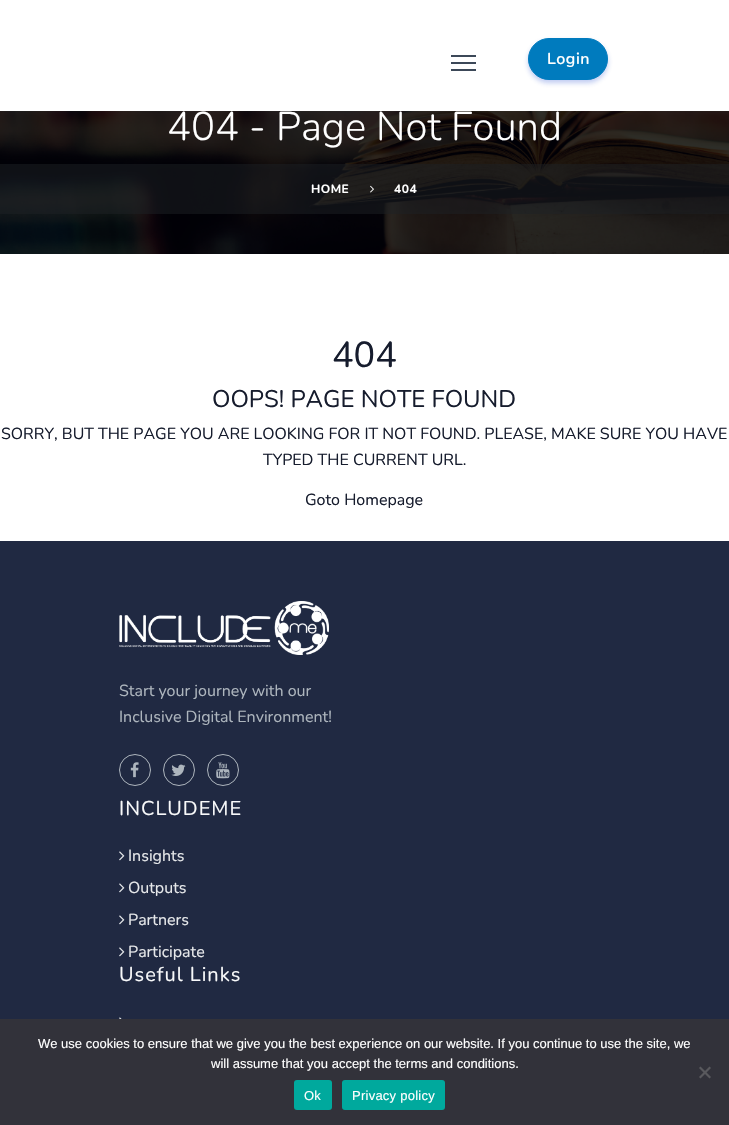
#include "include/core/SkBlurTypes.h"
#include "include/core/SkCanvas.h"
#include "include/core/SkData.h"
#include "include/core/SkFont.h"
#include "include/core/SkFontMgr.h"
#include "include/core/SkImage.h"
#include "include/core/SkMaskFilter.h"
#include "include/core/SkPaint.h"
#include "include/core/SkPathBuilder.h"
#include "include/core/SkTextBlob.h"
#include "include/effects/SkDashPathEffect.h"
#include "include/effects/SkGradientShader.h"
#include "include/utils/SkParsePath.h"

extern sk_sp<SkFontMgr> fontMgr;

static SkFont font(const char* family, int weight, float size, bool italic = false) {
    SkFontStyle style(weight, SkFontStyle::kNormal_Width,
        italic ? SkFontStyle::kItalic_Slant : SkFontStyle::kUpright_Slant);
    SkFont result(fontMgr->matchFamilyStyle(family, style), size);
    result.setSubpixel(true);
    return result;
}

static void drawLabel(SkCanvas* canvas, const char* s, float x, float y, const SkFont& font, SkColor color) {
    SkPaint ink(SkColor4f::FromColor(color));
    ink.setAntiAlias(true);
    canvas->drawString(s, x, y, font, ink);
}

static void drawTracked(SkCanvas* canvas, const char* s, float x, float y, const SkFont& font, const SkPaint& ink, float letter, float word) {
    std::vector<SkGlyphID> glyphs(font.countText(s, strlen(s), SkTextEncoding::kUTF8));
    std::vector<float> xs(glyphs.size());
    font.textToGlyphs(s, strlen(s), SkTextEncoding::kUTF8, glyphs);
    font.getXPos(glyphs, xs, x);
    float extra = 0;
    for (size_t i = 0; i < glyphs.size(); i++) {
        xs[i] += extra;
        extra += letter + word * (glyphs[i] == font.unicharToGlyph(' '));
    }
    canvas->drawTextBlob(SkTextBlob::MakeFromPosHGlyphs(glyphs, xs, y, font), 0, 0, ink);
}

static void fillRect(SkCanvas* canvas, float x, float y, float w, float h, SkColor color) {
    SkPaint ink(SkColor4f::FromColor(color));
    ink.setAntiAlias(true);
    canvas->drawRect(SkRect::MakeXYWH(x, y, w, h), ink);
}

static void fillRRect(SkCanvas* canvas, float x, float y, float w, float h, float radius, SkColor color) {
    SkPaint ink(SkColor4f::FromColor(color));
    ink.setAntiAlias(true);
    canvas->drawRoundRect(SkRect::MakeXYWH(x, y, w, h), radius, radius, ink);
}

static void drawPhoto(SkCanvas* canvas, const char* path, float x, float y, float w, float h) {
    auto image = SkImages::DeferredFromEncodedData(SkData::MakeFromFileName(path));
    canvas->drawImageRect(image, SkRect::MakeXYWH(x, y, w, h), SkSamplingOptions());
}

static SkPath parsePath(const char* data, bool evenOdd = false) {
    SkPath result = *SkParsePath::FromSVGString(data);
    if (evenOdd) result.setFillType(SkPathFillType::kEvenOdd);
    return result;
}

void draw(SkCanvas* canvas) {
    SkPaint paint;
    paint.setAntiAlias(true);
    canvas->clear(0xFFFFFFFF);
    drawPhoto(canvas, "assets/img1.png", 0, 111, 729, 143);
    paint.setColor(0x263C4858);
    paint.setMaskFilter(SkMaskFilter::MakeBlur(kNormal_SkBlurStyle, 1.5f));
    canvas->drawRect(SkRect::MakeXYWH(0, 0, 729, 111), paint);
    paint.setMaskFilter(nullptr);
    fillRect(canvas, 0, 0, 729, 111, 0xFFFFFFFF);
    fillRect(canvas, 451, 55, 25, 2, 0xFF3C4858);
    fillRect(canvas, 451, 62, 25, 2, 0xFF3C4858);
    fillRect(canvas, 451, 69, 25, 2, 0xFF3C4858);
    paint.setColor(0x4D2F55D4);
    paint.setMaskFilter(SkMaskFilter::MakeBlur(kNormal_SkBlurStyle, 2.5f));
    canvas->drawRoundRect(SkRect::MakeXYWH(528, 41, 80, 42), 21, 21, paint);
    paint.setMaskFilter(nullptr);
    paint.setColor(0xFF007BBE);
    canvas->drawRoundRect(SkRect::MakeXYWH(528.5f, 38.5f, 79, 41), 20.5f, 20.5f, paint);
    paint.setStroke(true);
    paint.setStrokeWidth(1);
    canvas->drawRoundRect(SkRect::MakeXYWH(528.5f, 38.5f, 79, 41), 20.5f, 20.5f, paint);
    SkFont font1 = font("Nunito", 600, 16);
    paint.setStroke(false);
    paint.setColor(0xFFFFFFFF);
    drawTracked(canvas, "Login", 547, 64, font1, paint, 0.5f, 0);
    SkFont font2 = font("Nunito", 300, 40);
    drawLabel(canvas, "404 - Page Not Found", 167, 140, font2, 0xFFFFFFFF);
    fillRect(canvas, 0, 164, 729, 50, 0x801C1F24);
    SkFont font3 = font("Nunito", 700, 12);
    drawTracked(canvas, "HOME", 311, 193, font3, paint, 0.5f, 0);
    drawPhoto(canvas, "assets/img2.png", 370, 185, 4, 8);
    drawTracked(canvas, "404", 394, 193, font3, paint, 0.5f, 0);
    SkFont font4 = font("Nunito", 400, 36);
    drawLabel(canvas, "404", 332, 367, font4, 0xFF161C2D);
    SkFont font5 = font("Nunito", 400, 24);
    drawLabel(canvas, "OOPS! PAGE NOTE FOUND", 212, 407, font5, 0xFF161C2D);
    SkFont font6 = font("Nunito", 400, 16);
    drawLabel(canvas, "SORRY, BUT THE PAGE YOU ARE LOOKING FOR IT NOT FOUND. PLEASE, MAKE SURE YOU HAVE", 1, 439, font6, 0xFF161C2D);
    drawLabel(canvas, "TYPED THE CURRENT URL.", 263, 465, font6, 0xFF161C2D);
    drawLabel(canvas, "Goto Homepage", 305, 505, font6, 0xFF161C2D);
    fillRect(canvas, 0, 541, 729, 478, 0xFF202942);
    drawPhoto(canvas, "assets/img3.png", 119, 601, 210, 54);
    drawLabel(canvas, "Start your journey with our", 119, 696, font6, 0xFFADB5BD);
    drawLabel(canvas, "Inclusive Digital Environment!", 119, 722, font6, 0xFFADB5BD);
    paint.setStroke(true);
    paint.setColor(0xFFADB5BD);
    canvas->drawCircle(135, 770, 15.5f, paint);
    drawPhoto(canvas, "assets/img4.png", 130, 762, 9, 16);
    canvas->drawCircle(179, 770, 15.5f, paint);
    drawPhoto(canvas, "assets/img5.png", 171, 764, 15, 12);
    canvas->drawCircle(223, 770, 15.5f, paint);
    drawPhoto(canvas, "assets/img6.png", 216, 762, 14, 17);
    SkFont font7 = font("Nunito", 400, 20);
    paint.setStroke(false);
    paint.setColor(0xFFF8F9FA);
    drawTracked(canvas, "INCLUDEME", 119, 815, font7, paint, 1, 0);
    drawPhoto(canvas, "assets/img7.png", 119, 851, 6, 10);
    drawLabel(canvas, "Insights", 128, 861, font6, 0xFFE6E8EA);
    drawPhoto(canvas, "assets/img7.png", 119, 883, 6, 10);
    drawLabel(canvas, "Outputs", 128, 893, font6, 0xFFE6E8EA);
    drawPhoto(canvas, "assets/img7.png", 119, 915, 6, 10);
    drawLabel(canvas, "Partners", 128, 925, font6, 0xFFE6E8EA);
    drawPhoto(canvas, "assets/img7.png", 119, 947, 6, 10);
    drawLabel(canvas, "Participate", 128, 957, font6, 0xFFE6E8EA);
    drawTracked(canvas, "Useful Links", 119, 981, font7, paint, 1, 0);
    drawPhoto(canvas, "assets/img8.png", 119, 1017, 3, 2);
    fillRect(canvas, 0, 1019, 729, 106, 0xFF32323A);
    SkFont font8 = font("Liberation Sans", 400, 13);
    drawLabel(canvas, "We use cookies to ensure that we give you the best experience on our website. If you continue to use the site, we", 38, 1048, font8, 0xFFFFFFFF);
    drawLabel(canvas, "will assume that you accept the terms and conditions.", 211, 1068, font8, 0xFFFFFFFF);
    paint.setColor(0xFF59595D);
    canvas->drawPath(parsePath("M709.5 1066.5L711 1068L700.5 1078.5L699 1077Z"), paint);
    canvas->drawPath(parsePath("M699 1068L700.5 1066.5L711 1077L709.5 1078.5Z"), paint);
    fillRRect(canvas, 294, 1080, 38, 30, 3, 0xFF00A99D);
    paint.setColor(0xFFFFFFFF);
    drawTracked(canvas, "Ok", 304, 1100, font8, paint, 0.25f, 0);
    fillRRect(canvas, 342, 1080, 103, 30, 3, 0xFF00A99D);
    drawTracked(canvas, "Privacy policy", 352, 1100, font8, paint, 0.25f, 0);
}
